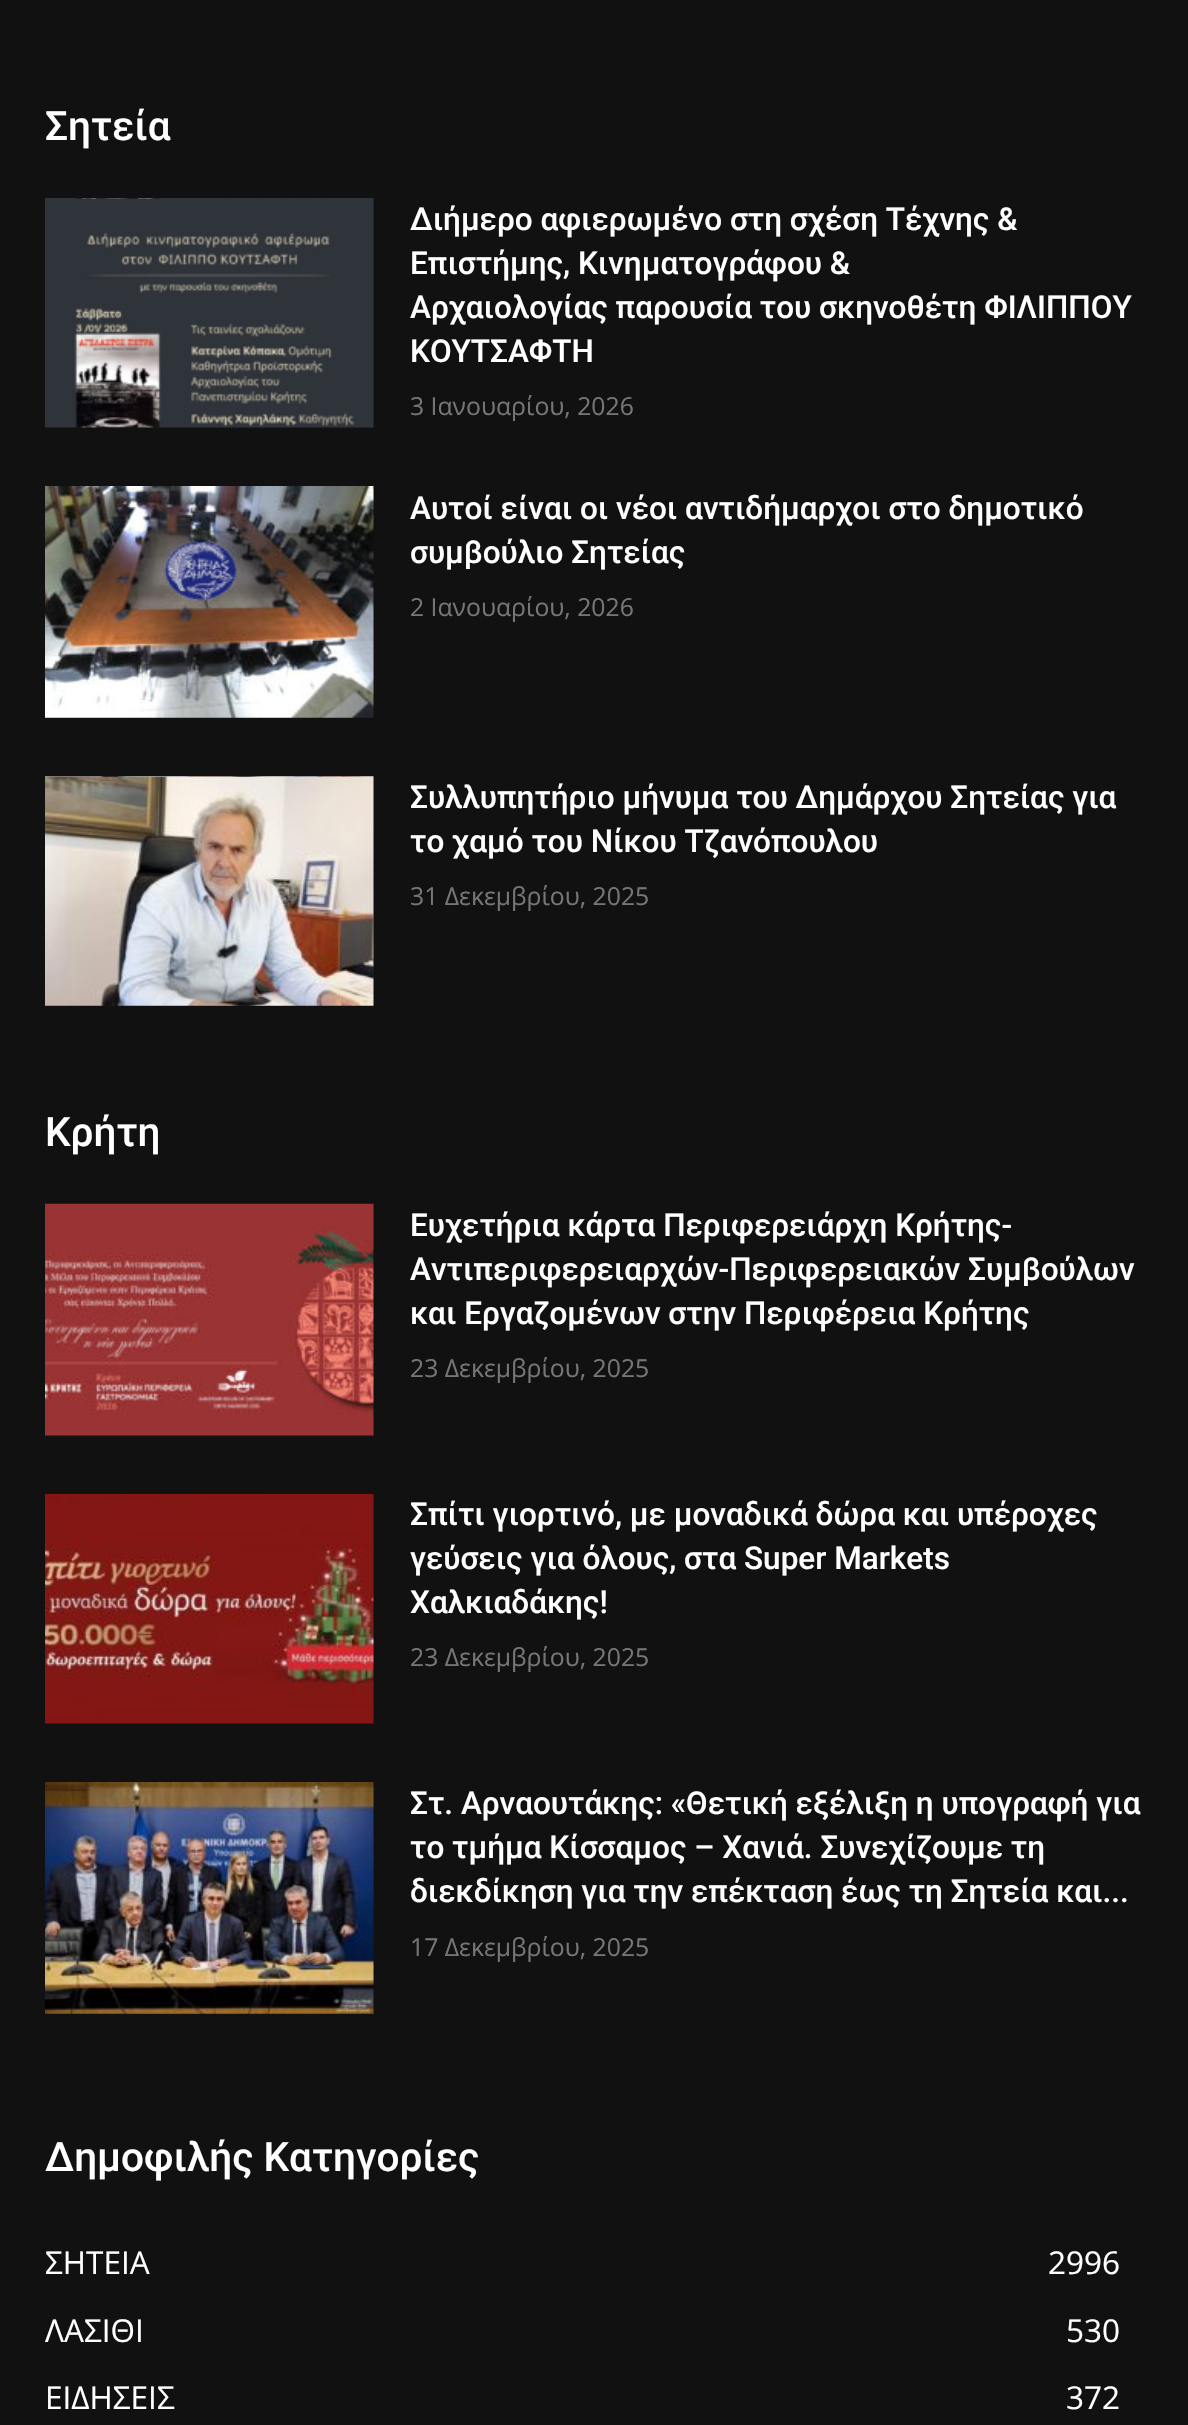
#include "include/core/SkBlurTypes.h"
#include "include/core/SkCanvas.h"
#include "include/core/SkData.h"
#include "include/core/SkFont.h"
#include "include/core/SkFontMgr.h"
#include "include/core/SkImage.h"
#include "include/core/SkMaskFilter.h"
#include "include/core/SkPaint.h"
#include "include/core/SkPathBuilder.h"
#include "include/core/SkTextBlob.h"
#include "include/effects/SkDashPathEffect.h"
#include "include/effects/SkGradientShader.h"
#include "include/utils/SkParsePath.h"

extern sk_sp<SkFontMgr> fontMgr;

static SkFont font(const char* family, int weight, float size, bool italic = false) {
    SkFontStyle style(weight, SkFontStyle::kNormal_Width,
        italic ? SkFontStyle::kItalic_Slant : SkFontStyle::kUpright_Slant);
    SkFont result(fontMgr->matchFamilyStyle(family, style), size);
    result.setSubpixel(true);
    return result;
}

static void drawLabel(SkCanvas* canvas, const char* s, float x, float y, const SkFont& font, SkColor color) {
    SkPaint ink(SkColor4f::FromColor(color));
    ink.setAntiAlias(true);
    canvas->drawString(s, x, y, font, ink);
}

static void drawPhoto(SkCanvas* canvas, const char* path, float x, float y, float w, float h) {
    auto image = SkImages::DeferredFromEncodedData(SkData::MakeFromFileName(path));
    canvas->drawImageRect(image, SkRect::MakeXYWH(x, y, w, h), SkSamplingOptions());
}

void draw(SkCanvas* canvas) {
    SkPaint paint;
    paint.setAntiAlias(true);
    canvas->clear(0xFF111111);
    SkFont font1 = font("Roboto", 500, 40.5f);
    drawLabel(canvas, "Σητεία", 45, 140, font1, 0xFFFFFFFF);
    drawPhoto(canvas, "assets/img1.png", 45, 198, 329, 230);
    SkFont font2 = font("Roboto", 500, 31.5f);
    drawLabel(canvas, "Διήμερο αφιερωμένο στη σχέση Τέχνης &", 410, 230, font2, 0xFFFFFFFF);
    drawLabel(canvas, "Επιστήμης, Κινηματογράφου &", 410, 274, font2, 0xFFFFFFFF);
    drawLabel(canvas, "Αρχαιολογίας παρουσία του σκηνοθέτη ΦΙΛΙΠΠΟΥ", 410, 318, font2, 0xFFFFFFFF);
    drawLabel(canvas, "ΚΟΥΤΣΑΦΤΗ", 410, 362, font2, 0xFFFFFFFF);
    SkFont font3 = font("Open Sans", 400, 24.75f);
    drawLabel(canvas, "3 Ιανουαρίου, 2026", 410, 415, font3, 0xFF767676);
    drawPhoto(canvas, "assets/img2.png", 45, 486, 329, 232);
    drawLabel(canvas, "Αυτοί είναι οι νέοι αντιδήμαρχοι στο δημοτικό", 410, 519, font2, 0xFFFFFFFF);
    drawLabel(canvas, "συμβούλιο Σητείας", 410, 563, font2, 0xFFFFFFFF);
    drawLabel(canvas, "2 Ιανουαρίου, 2026", 410, 616, font3, 0xFF767676);
    drawPhoto(canvas, "assets/img3.png", 45, 776, 329, 230);
    drawLabel(canvas, "Συλλυπητήριο μήνυμα του Δημάρχου Σητείας για", 410, 808, font2, 0xFFFFFFFF);
    drawLabel(canvas, "το χαμό του Νίκου Τζανόπουλου", 410, 852, font2, 0xFFFFFFFF);
    drawLabel(canvas, "31 Δεκεμβρίου, 2025", 410, 905, font3, 0xFF767676);
    drawLabel(canvas, "Κρήτη", 45, 1146, font1, 0xFFFFFFFF);
    drawPhoto(canvas, "assets/img4.png", 45, 1203, 329, 233);
    drawLabel(canvas, "Ευχετήρια κάρτα Περιφερειάρχη Κρήτης-", 410, 1236, font2, 0xFFFFFFFF);
    drawLabel(canvas, "Αντιπεριφερειαρχών-Περιφερειακών Συμβούλων", 410, 1280, font2, 0xFFFFFFFF);
    drawLabel(canvas, "και Εργαζομένων στην Περιφέρεια Κρήτης", 410, 1324, font2, 0xFFFFFFFF);
    drawLabel(canvas, "23 Δεκεμβρίου, 2025", 410, 1377, font3, 0xFF767676);
    drawPhoto(canvas, "assets/img5.png", 45, 1494, 329, 230);
    drawLabel(canvas, "Σπίτι γιορτινό, με μοναδικά δώρα και υπέροχες", 410, 1525, font2, 0xFFFFFFFF);
    drawLabel(canvas, "γεύσεις για όλους, στα Super Markets", 410, 1569, font2, 0xFFFFFFFF);
    drawLabel(canvas, "Χαλκιαδάκης!", 410, 1613, font2, 0xFFFFFFFF);
    drawLabel(canvas, "23 Δεκεμβρίου, 2025", 410, 1666, font3, 0xFF767676);
    drawPhoto(canvas, "assets/img6.png", 45, 1782, 329, 232);
    drawLabel(canvas, "Στ. Αρναουτάκης: «Θετική εξέλιξη η υπογραφή για", 410, 1814, font2, 0xFFFFFFFF);
    drawLabel(canvas, "το τμήμα Κίσσαμος – Χανιά. Συνεχίζουμε τη", 410, 1858, font2, 0xFFFFFFFF);
    drawLabel(canvas, "διεκδίκηση για την επέκταση έως τη Σητεία και...", 410, 1902, font2, 0xFFFFFFFF);
    drawLabel(canvas, "17 Δεκεμβρίου, 2025", 410, 1956, font3, 0xFF767676);
    drawLabel(canvas, "Δημοφιλής Κατηγορίες", 45, 2171, font1, 0xFFFFFFFF);
    SkFont font4 = font("Open Sans", 400, 31.5f);
    drawLabel(canvas, "ΣΗΤΕΙΑ", 45, 2274, font4, 0xFFFFFFFF);
    drawLabel(canvas, "2996", 1048, 2274, font4, 0xFFFFFFFF);
    drawLabel(canvas, "ΛΑΣΙΘΙ", 45, 2342, font4, 0xFFFFFFFF);
    drawLabel(canvas, "530", 1066, 2342, font4, 0xFFFFFFFF);
    drawLabel(canvas, "ΕΙΔΗΣΕΙΣ", 45, 2409, font4, 0xFFFFFFFF);
    drawLabel(canvas, "372", 1066, 2409, font4, 0xFFFFFFFF);
}
